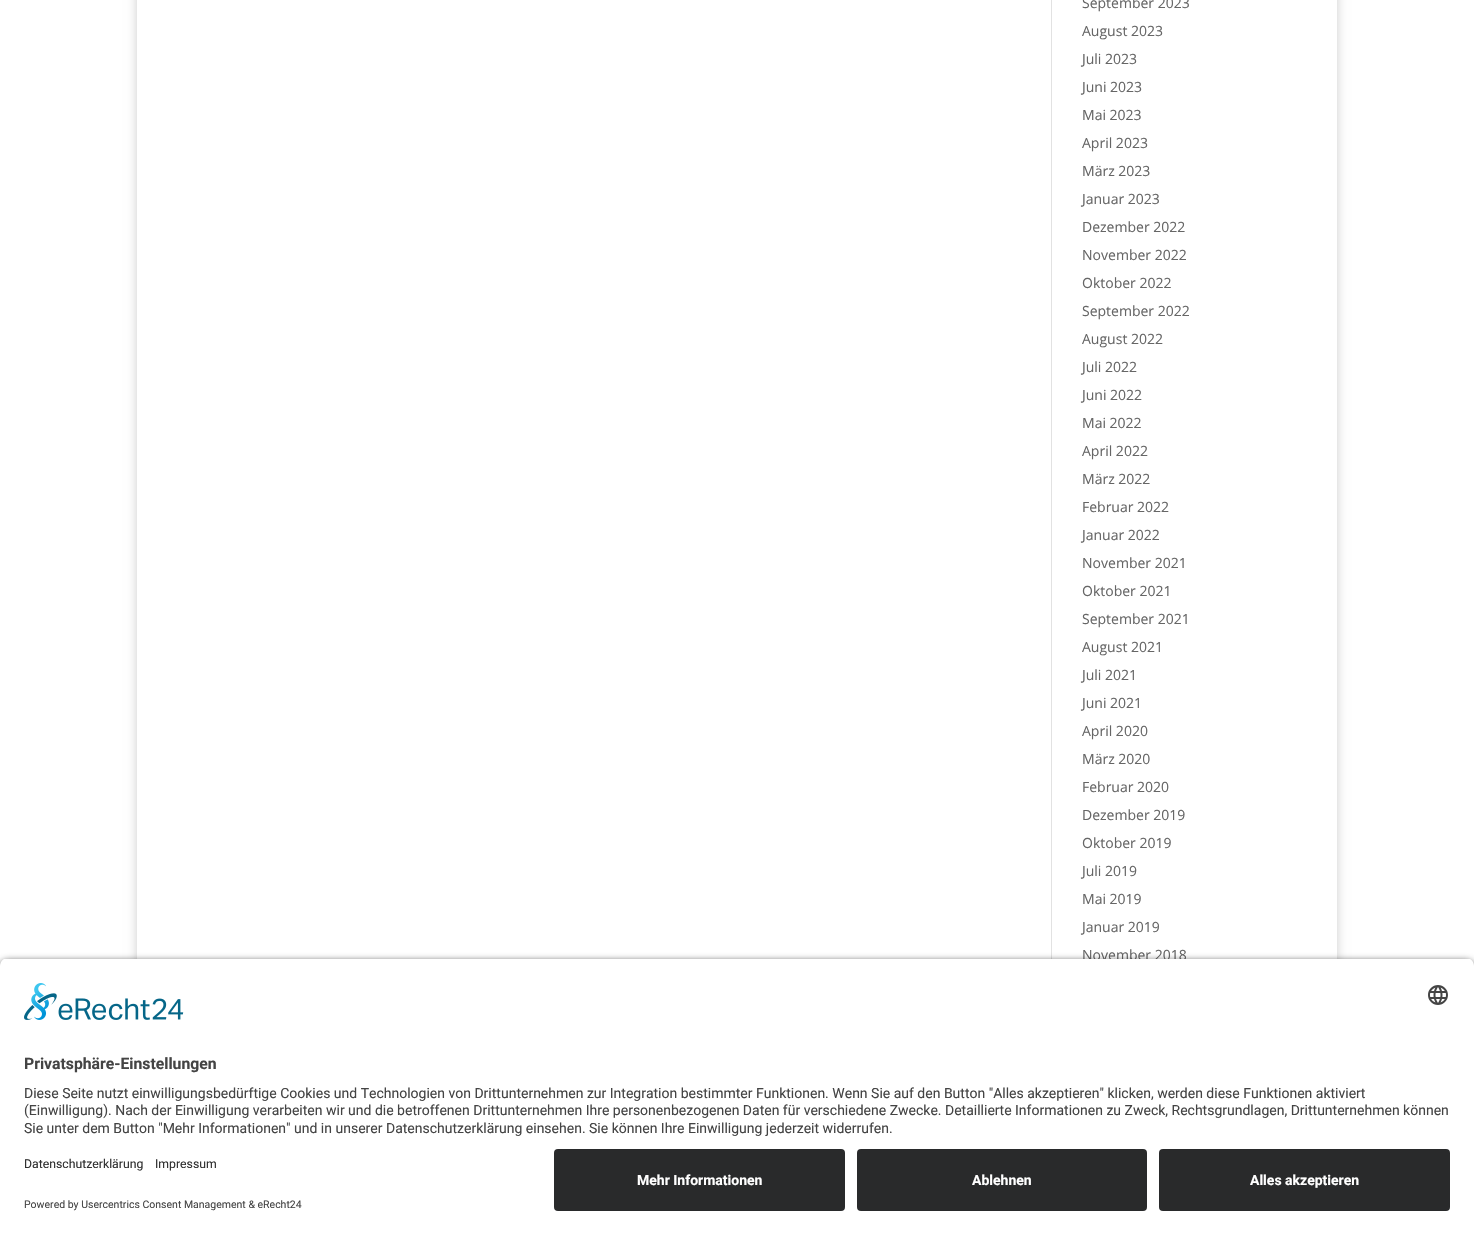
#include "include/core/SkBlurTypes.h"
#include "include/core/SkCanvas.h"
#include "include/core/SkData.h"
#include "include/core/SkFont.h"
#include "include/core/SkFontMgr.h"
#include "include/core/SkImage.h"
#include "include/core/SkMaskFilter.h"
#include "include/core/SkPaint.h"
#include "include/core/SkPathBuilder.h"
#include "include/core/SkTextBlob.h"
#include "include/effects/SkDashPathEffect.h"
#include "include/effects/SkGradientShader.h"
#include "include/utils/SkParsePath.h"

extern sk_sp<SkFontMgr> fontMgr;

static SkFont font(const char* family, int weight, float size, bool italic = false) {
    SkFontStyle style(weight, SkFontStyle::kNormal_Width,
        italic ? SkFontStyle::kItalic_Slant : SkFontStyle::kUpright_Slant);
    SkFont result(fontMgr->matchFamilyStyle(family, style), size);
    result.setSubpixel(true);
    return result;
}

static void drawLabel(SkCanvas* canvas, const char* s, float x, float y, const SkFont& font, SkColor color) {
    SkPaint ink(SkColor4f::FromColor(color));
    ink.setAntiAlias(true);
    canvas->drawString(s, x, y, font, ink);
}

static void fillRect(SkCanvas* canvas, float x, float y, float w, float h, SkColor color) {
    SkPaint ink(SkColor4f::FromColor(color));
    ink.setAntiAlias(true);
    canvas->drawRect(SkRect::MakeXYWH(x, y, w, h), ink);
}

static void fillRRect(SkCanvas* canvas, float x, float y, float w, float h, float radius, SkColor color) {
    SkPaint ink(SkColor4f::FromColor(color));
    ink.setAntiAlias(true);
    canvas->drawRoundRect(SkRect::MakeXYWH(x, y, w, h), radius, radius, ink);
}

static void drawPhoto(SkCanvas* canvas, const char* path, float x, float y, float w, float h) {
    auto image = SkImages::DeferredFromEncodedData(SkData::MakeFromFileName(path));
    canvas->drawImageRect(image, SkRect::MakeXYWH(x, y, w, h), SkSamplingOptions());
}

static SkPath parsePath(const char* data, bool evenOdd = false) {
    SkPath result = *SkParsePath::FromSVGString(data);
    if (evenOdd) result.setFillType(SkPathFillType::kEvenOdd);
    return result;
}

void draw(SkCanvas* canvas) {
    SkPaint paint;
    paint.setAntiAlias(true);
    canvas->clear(0xFFFFFFFF);
    canvas->save();
    canvas->clipPath(parsePath("M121 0H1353V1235H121ZM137-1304H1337V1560H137Z", true), true);
    paint.setColor(0x33000000);
    paint.setMaskFilter(SkMaskFilter::MakeBlur(kNormal_SkBlurStyle, 5));
    canvas->drawRect(SkRect::MakeXYWH(137, -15, 1200, 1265), paint);
    paint.setMaskFilter(nullptr);
    canvas->restore();
    fillRect(canvas, 1051, 0, 1, 959, 0xFFE2E2E2);
    SkFont font1 = font("Open Sans", 400, 14);
    drawLabel(canvas, "September 2023", 1082, 8, font1, 0xFF666666);
    drawLabel(canvas, "August 2023", 1082, 36, font1, 0xFF666666);
    drawLabel(canvas, "Juli 2023", 1082, 64, font1, 0xFF666666);
    drawLabel(canvas, "Juni 2023", 1082, 92, font1, 0xFF666666);
    drawLabel(canvas, "Mai 2023", 1082, 120, font1, 0xFF666666);
    drawLabel(canvas, "April 2023", 1082, 148, font1, 0xFF666666);
    drawLabel(canvas, "März 2023", 1082, 176, font1, 0xFF666666);
    drawLabel(canvas, "Januar 2023", 1082, 204, font1, 0xFF666666);
    drawLabel(canvas, "Dezember 2022", 1082, 232, font1, 0xFF666666);
    drawLabel(canvas, "November 2022", 1082, 260, font1, 0xFF666666);
    drawLabel(canvas, "Oktober 2022", 1082, 288, font1, 0xFF666666);
    drawLabel(canvas, "September 2022", 1082, 316, font1, 0xFF666666);
    drawLabel(canvas, "August 2022", 1082, 344, font1, 0xFF666666);
    drawLabel(canvas, "Juli 2022", 1082, 372, font1, 0xFF666666);
    drawLabel(canvas, "Juni 2022", 1082, 400, font1, 0xFF666666);
    drawLabel(canvas, "Mai 2022", 1082, 428, font1, 0xFF666666);
    drawLabel(canvas, "April 2022", 1082, 456, font1, 0xFF666666);
    drawLabel(canvas, "März 2022", 1082, 484, font1, 0xFF666666);
    drawLabel(canvas, "Februar 2022", 1082, 512, font1, 0xFF666666);
    drawLabel(canvas, "Januar 2022", 1082, 540, font1, 0xFF666666);
    drawLabel(canvas, "November 2021", 1082, 568, font1, 0xFF666666);
    drawLabel(canvas, "Oktober 2021", 1082, 596, font1, 0xFF666666);
    drawLabel(canvas, "September 2021", 1082, 624, font1, 0xFF666666);
    drawLabel(canvas, "August 2021", 1082, 652, font1, 0xFF666666);
    drawLabel(canvas, "Juli 2021", 1082, 680, font1, 0xFF666666);
    drawLabel(canvas, "Juni 2021", 1082, 708, font1, 0xFF666666);
    drawLabel(canvas, "April 2020", 1082, 736, font1, 0xFF666666);
    drawLabel(canvas, "März 2020", 1082, 764, font1, 0xFF666666);
    drawLabel(canvas, "Februar 2020", 1082, 792, font1, 0xFF666666);
    drawLabel(canvas, "Dezember 2019", 1082, 820, font1, 0xFF666666);
    drawLabel(canvas, "Oktober 2019", 1082, 848, font1, 0xFF666666);
    drawLabel(canvas, "Juli 2019", 1082, 876, font1, 0xFF666666);
    drawLabel(canvas, "Mai 2019", 1082, 904, font1, 0xFF666666);
    drawLabel(canvas, "Januar 2019", 1082, 932, font1, 0xFF666666);
    drawLabel(canvas, "November 2018", 1082, 960, font1, 0xFF666666);
    paint.setColor(0xCC000000);
    paint.setMaskFilter(SkMaskFilter::MakeBlur(kNormal_SkBlurStyle, 3.5f));
    canvas->drawRoundRect(SkRect::MakeXYWH(0, 961, 1474, 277), 8, 8, paint);
    paint.setMaskFilter(nullptr);
    canvas->save();
    canvas->clipPath(parsePath("M8 958H1466C1470.5 958 1474 961.5 1474 966V1141H0V966C0 961.5 3.5 958 8 958Z"), true);
    fillRect(canvas, 0, 959, 1474, 182, 0xFFFFFFFF);
    canvas->restore();
    drawPhoto(canvas, "assets/img1.png", 24, 983, 160, 37);
    drawPhoto(canvas, "assets/img2.png", 1428, 985, 20, 20);
    SkFont font2 = font("Roboto", 700, 15.75f);
    drawLabel(canvas, "Privatsphäre-Einstellungen", 24, 1069, font2, 0xFF444444);
    SkFont font3 = font("Roboto", 400, 14);
    drawLabel(canvas, "Diese Seite nutzt einwilligungsbedürftige Cookies und Technologien von Drittunternehmen zur Integration bestimmter Funktionen. Wenn Sie auf den Button \"Alles akzeptieren\" klicken, werden diese Funktionen aktiviert", 24, 1098, font3, 0xFF444444);
    drawLabel(canvas, "(Einwilligung). Nach der Einwilligung verarbeiten wir und die betroffenen Drittunternehmen Ihre personenbezogenen Daten für verschiedene Zwecke. Detaillierte Informationen zu Zweck, Rechtsgrundlagen, Drittunternehmen können", 24, 1115, font3, 0xFF444444);
    drawLabel(canvas, "Sie unter dem Button \"Mehr Informationen\" und in unserer Datenschutzerklärung einsehen. Sie können Ihre Einwilligung jederzeit widerrufen.", 24, 1133, font3, 0xFF444444);
    fillRect(canvas, 0, 1141, 1474, 94, 0xFFFFFFFF);
    SkFont font4 = font("Roboto", 400, 12.25f);
    drawLabel(canvas, "Datenschutzerklärung", 24, 1168, font4, 0xFF303030);
    drawLabel(canvas, "Impressum", 155, 1168, font4, 0xFF303030);
    SkFont font5 = font("Roboto", 400, 10.5f);
    drawLabel(canvas, "Powered by Usercentrics Consent Management & eRecht24", 24, 1208, font5, 0xFF444444);
    fillRRect(canvas, 554, 1149, 291, 62, 4, 0xFF292A2B);
    SkFont font6 = font("Roboto", 700, 14);
    drawLabel(canvas, "Mehr Informationen", 637, 1185, font6, 0xFFFFFFFF);
    fillRRect(canvas, 857, 1149, 290, 62, 4, 0xFF292A2B);
    drawLabel(canvas, "Ablehnen", 972, 1185, font6, 0xFFFFFFFF);
    fillRRect(canvas, 1159, 1149, 291, 62, 4, 0xFF292A2B);
    drawLabel(canvas, "Alles akzeptieren", 1250, 1185, font6, 0xFFFFFFFF);
}
